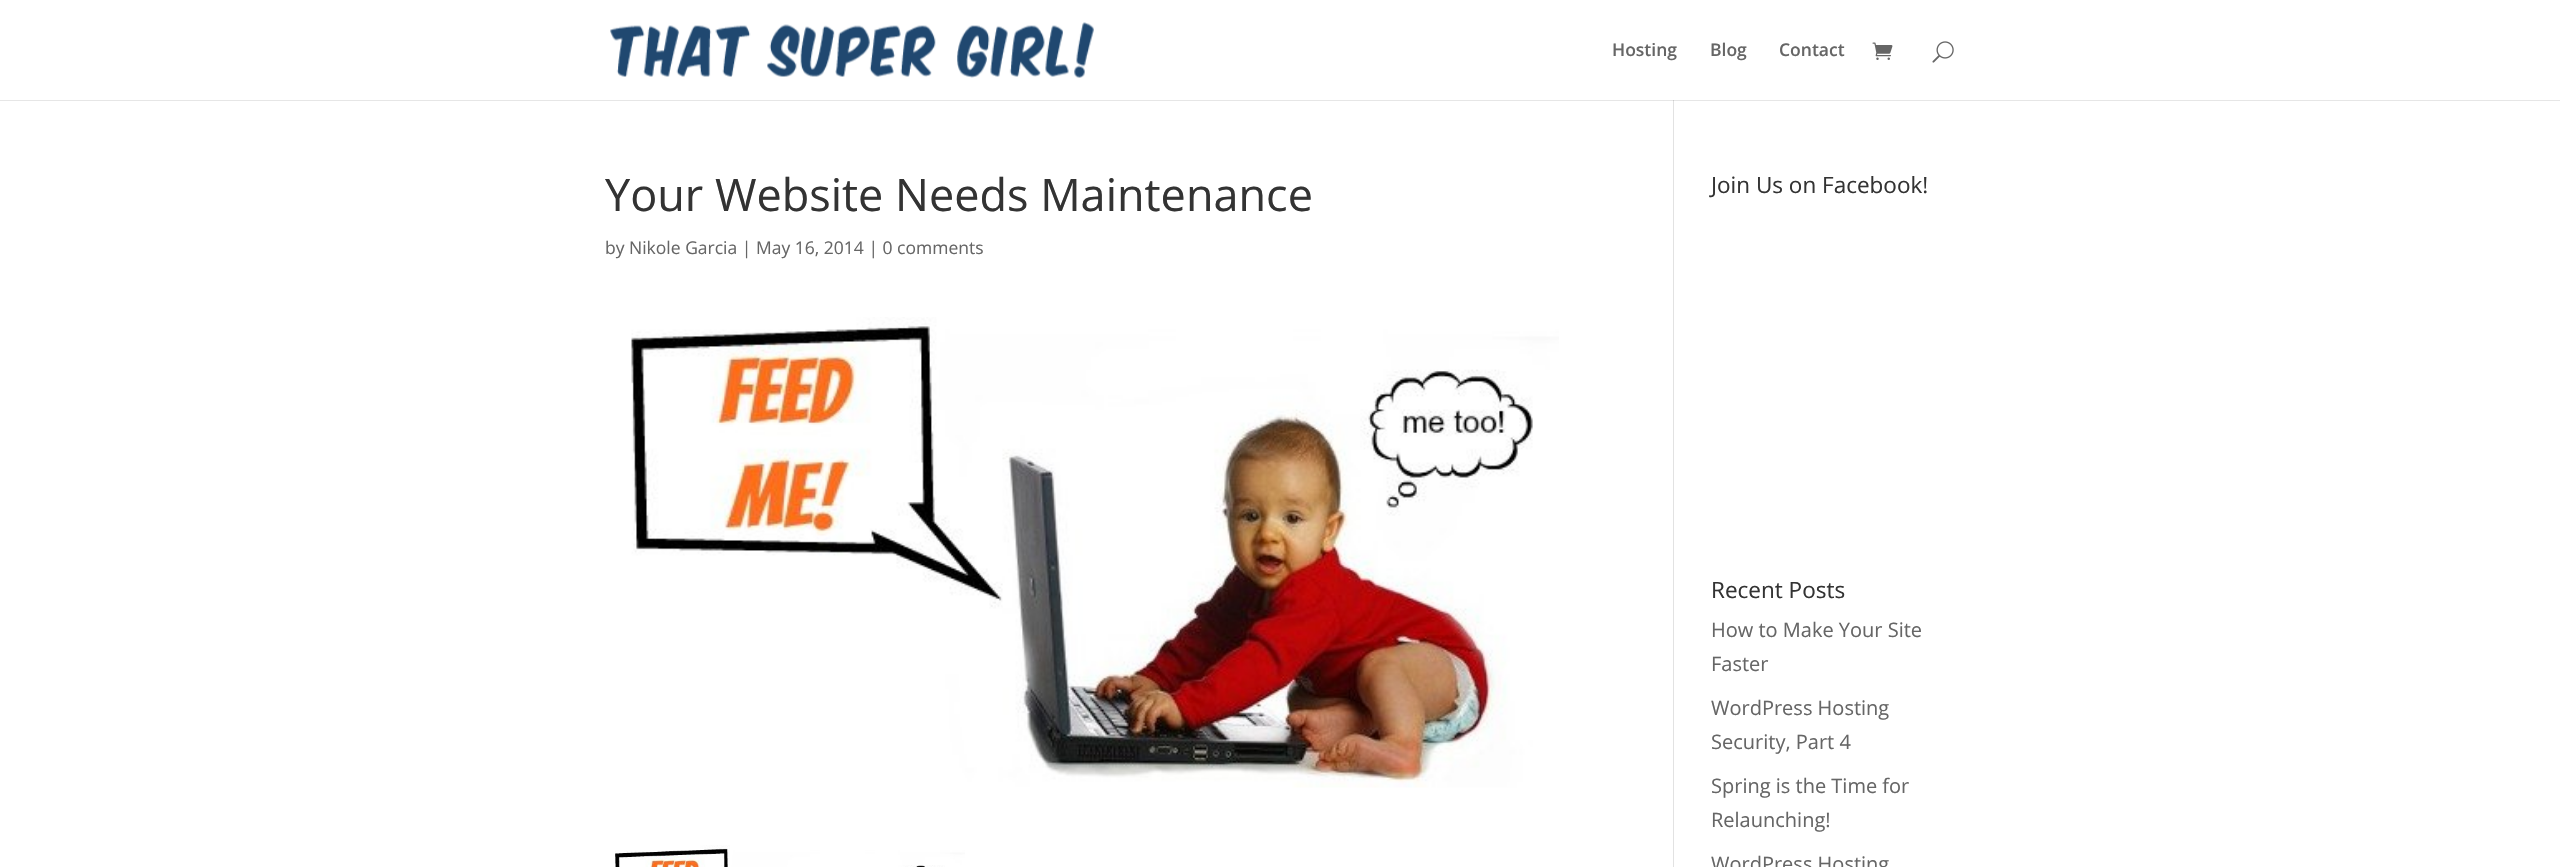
#include "include/core/SkBlurTypes.h"
#include "include/core/SkCanvas.h"
#include "include/core/SkData.h"
#include "include/core/SkFont.h"
#include "include/core/SkFontMgr.h"
#include "include/core/SkImage.h"
#include "include/core/SkMaskFilter.h"
#include "include/core/SkPaint.h"
#include "include/core/SkPathBuilder.h"
#include "include/core/SkTextBlob.h"
#include "include/effects/SkDashPathEffect.h"
#include "include/effects/SkGradientShader.h"
#include "include/utils/SkParsePath.h"

extern sk_sp<SkFontMgr> fontMgr;

static SkFont font(const char* family, int weight, float size, bool italic = false) {
    SkFontStyle style(weight, SkFontStyle::kNormal_Width,
        italic ? SkFontStyle::kItalic_Slant : SkFontStyle::kUpright_Slant);
    SkFont result(fontMgr->matchFamilyStyle(family, style), size);
    result.setSubpixel(true);
    return result;
}

static void drawLabel(SkCanvas* canvas, const char* s, float x, float y, const SkFont& font, SkColor color) {
    SkPaint ink(SkColor4f::FromColor(color));
    ink.setAntiAlias(true);
    canvas->drawString(s, x, y, font, ink);
}

static void fillRect(SkCanvas* canvas, float x, float y, float w, float h, SkColor color) {
    SkPaint ink(SkColor4f::FromColor(color));
    ink.setAntiAlias(true);
    canvas->drawRect(SkRect::MakeXYWH(x, y, w, h), ink);
}

static void drawPhoto(SkCanvas* canvas, const char* path, float x, float y, float w, float h) {
    auto image = SkImages::DeferredFromEncodedData(SkData::MakeFromFileName(path));
    canvas->drawImageRect(image, SkRect::MakeXYWH(x, y, w, h), SkSamplingOptions());
}

void draw(SkCanvas* canvas) {
    SkPaint paint;
    paint.setAntiAlias(true);
    canvas->clear(0xFFFFFFFF);
    fillRect(canvas, 0, 100, 2560, 1, 0xFFE6E6E6);
    drawPhoto(canvas, "assets/img1.png", 610, 22, 484, 56);
    SkFont font1 = font("Open Sans", 600, 17.5f);
    drawLabel(canvas, "Hosting", 1612, 56, font1, 0xFF666666);
    drawLabel(canvas, "Blog", 1710, 56, font1, 0xFF666666);
    drawLabel(canvas, "Contact", 1779, 56, font1, 0xFF666666);
    drawPhoto(canvas, "assets/img2.png", 1872, 42, 21, 18);
    drawPhoto(canvas, "assets/img3.png", 1932, 41, 22, 22);
    fillRect(canvas, 1673, 100, 1, 767, 0xFFE2E2E2);
    fillRect(canvas, 1673, 100, 1, 1, 0xFFCBCBCB);
    SkFont font2 = font("Open Sans", 400, 45);
    drawLabel(canvas, "Your Website Needs Maintenance", 605, 211, font2, 0xFF333333);
    SkFont font3 = font("Open Sans", 400, 17.5f);
    drawLabel(canvas, "by Nikole Garcia | May 16, 2014 | 0 comments", 605, 254, font3, 0xFF666666);
    drawPhoto(canvas, "assets/img4.png", 631, 317, 928, 471);
    drawPhoto(canvas, "assets/img5.png", 615, 845, 350, 22);
    SkFont font4 = font("Open Sans", 400, 22.5f);
    drawLabel(canvas, "Join Us on Facebook!", 1711, 193, font4, 0xFF333333);
    drawLabel(canvas, "Recent Posts", 1711, 598, font4, 0xFF333333);
    SkFont font5 = font("Open Sans", 400, 20);
    drawLabel(canvas, "How to Make Your Site", 1711, 637, font5, 0xFF666666);
    drawLabel(canvas, "Faster", 1711, 671, font5, 0xFF666666);
    drawLabel(canvas, "WordPress Hosting", 1711, 715, font5, 0xFF666666);
    drawLabel(canvas, "Security, Part 4", 1711, 749, font5, 0xFF666666);
    drawLabel(canvas, "Spring is the Time for", 1711, 793, font5, 0xFF666666);
    drawLabel(canvas, "Relaunching!", 1711, 827, font5, 0xFF666666);
    drawLabel(canvas, "WordPress Hosting", 1711, 871, font5, 0xFF666666);
}
